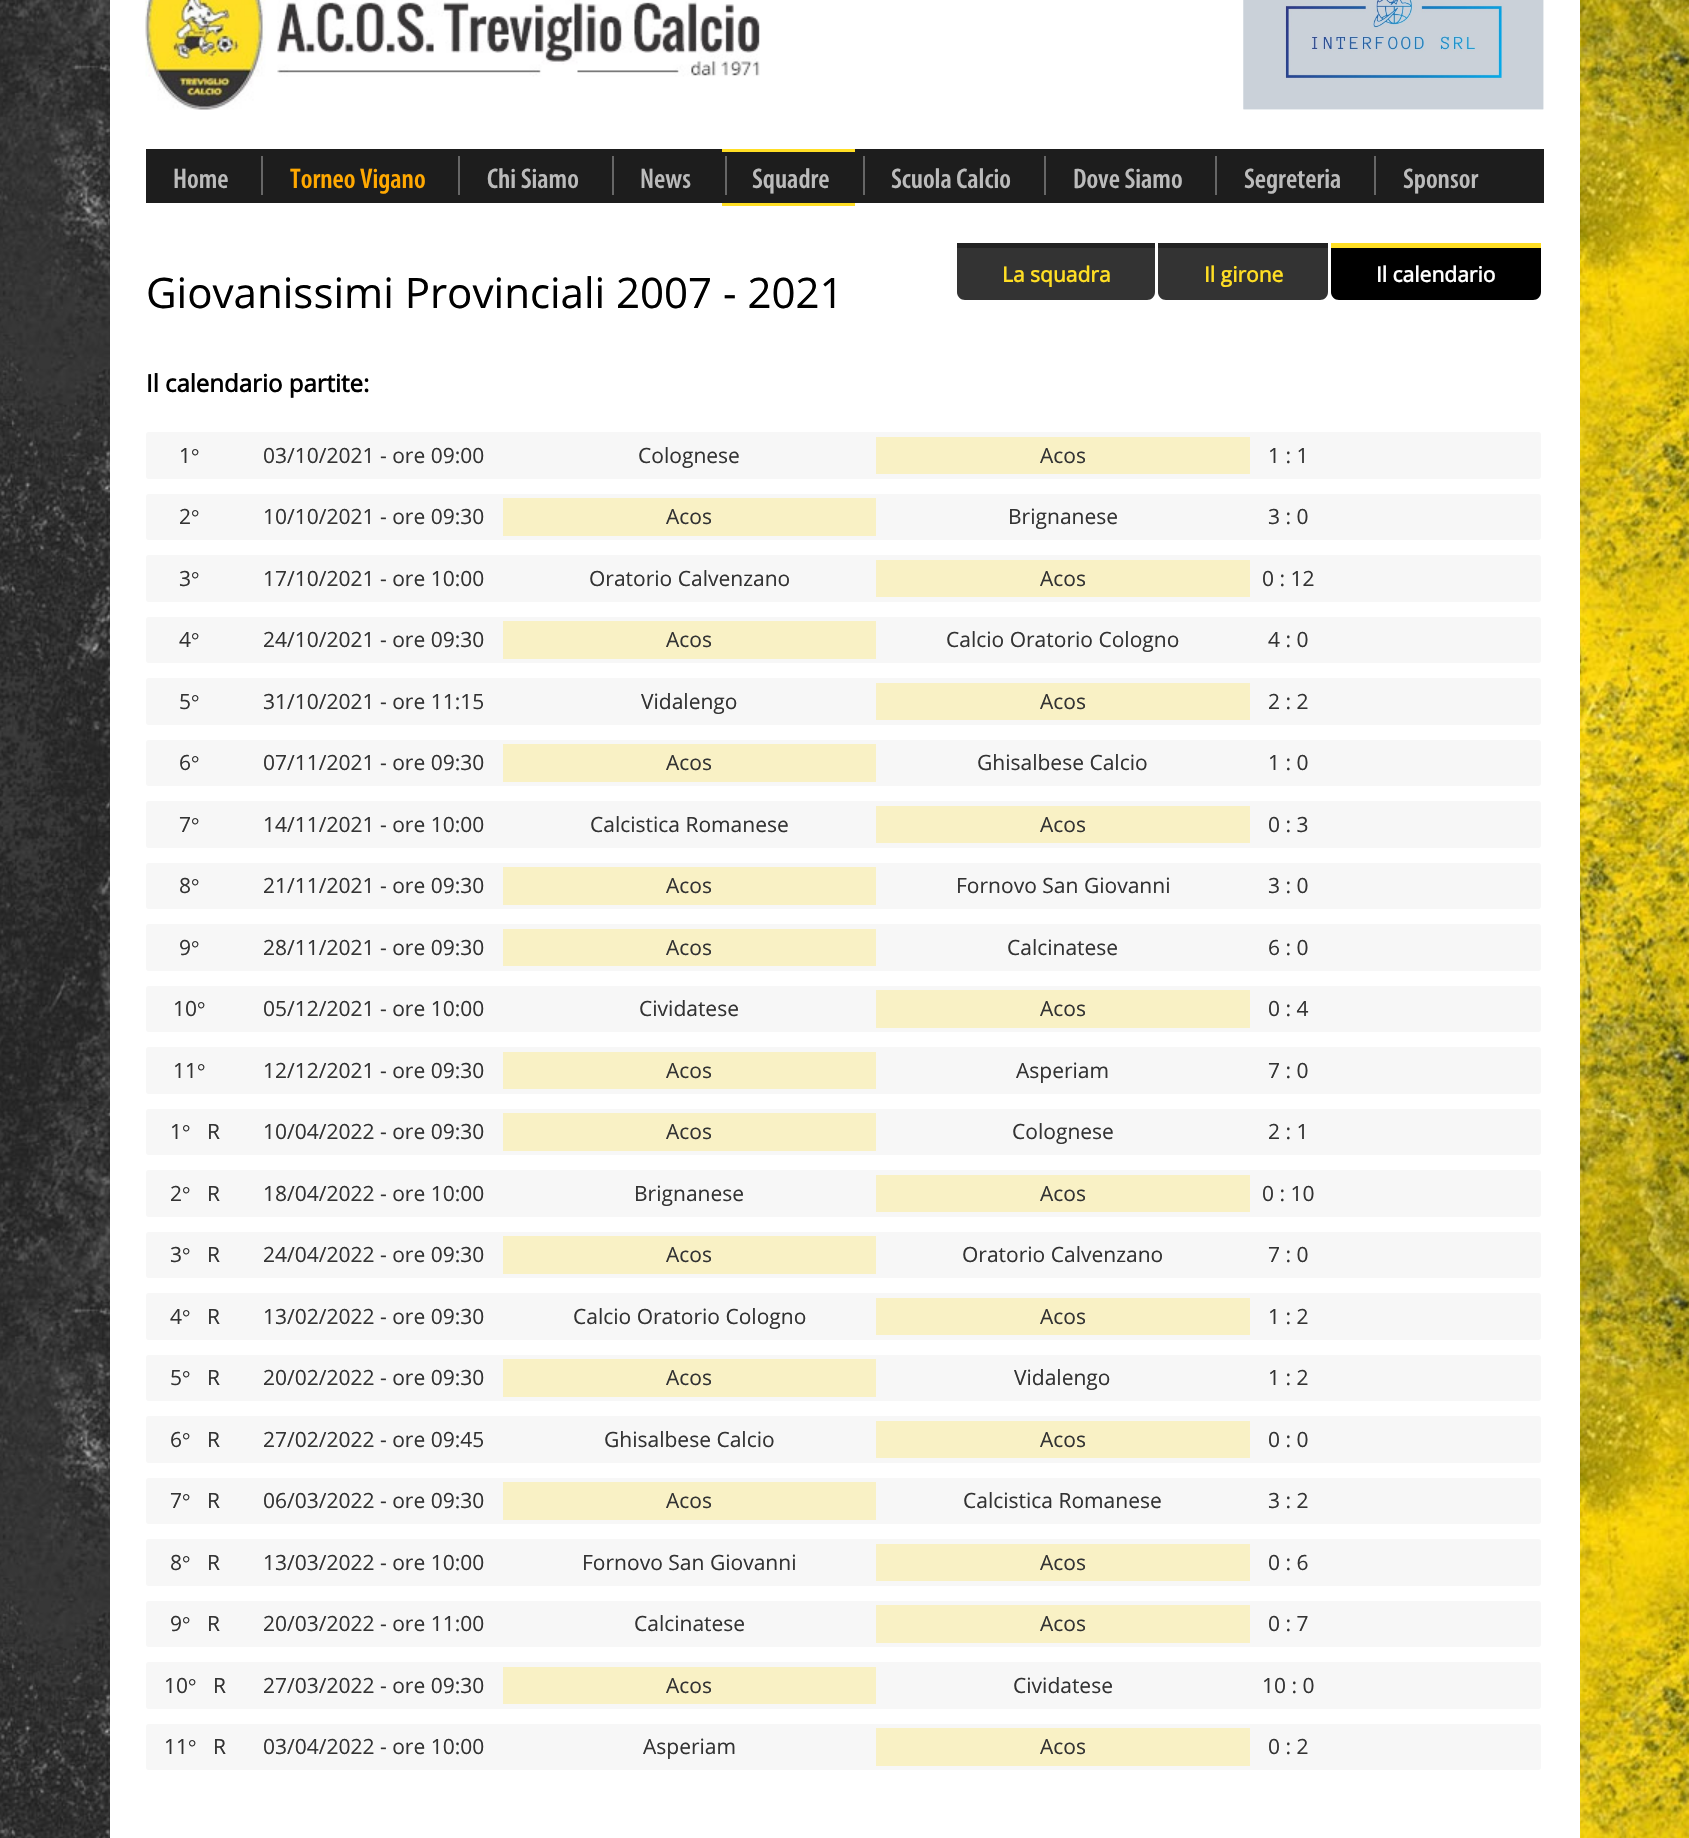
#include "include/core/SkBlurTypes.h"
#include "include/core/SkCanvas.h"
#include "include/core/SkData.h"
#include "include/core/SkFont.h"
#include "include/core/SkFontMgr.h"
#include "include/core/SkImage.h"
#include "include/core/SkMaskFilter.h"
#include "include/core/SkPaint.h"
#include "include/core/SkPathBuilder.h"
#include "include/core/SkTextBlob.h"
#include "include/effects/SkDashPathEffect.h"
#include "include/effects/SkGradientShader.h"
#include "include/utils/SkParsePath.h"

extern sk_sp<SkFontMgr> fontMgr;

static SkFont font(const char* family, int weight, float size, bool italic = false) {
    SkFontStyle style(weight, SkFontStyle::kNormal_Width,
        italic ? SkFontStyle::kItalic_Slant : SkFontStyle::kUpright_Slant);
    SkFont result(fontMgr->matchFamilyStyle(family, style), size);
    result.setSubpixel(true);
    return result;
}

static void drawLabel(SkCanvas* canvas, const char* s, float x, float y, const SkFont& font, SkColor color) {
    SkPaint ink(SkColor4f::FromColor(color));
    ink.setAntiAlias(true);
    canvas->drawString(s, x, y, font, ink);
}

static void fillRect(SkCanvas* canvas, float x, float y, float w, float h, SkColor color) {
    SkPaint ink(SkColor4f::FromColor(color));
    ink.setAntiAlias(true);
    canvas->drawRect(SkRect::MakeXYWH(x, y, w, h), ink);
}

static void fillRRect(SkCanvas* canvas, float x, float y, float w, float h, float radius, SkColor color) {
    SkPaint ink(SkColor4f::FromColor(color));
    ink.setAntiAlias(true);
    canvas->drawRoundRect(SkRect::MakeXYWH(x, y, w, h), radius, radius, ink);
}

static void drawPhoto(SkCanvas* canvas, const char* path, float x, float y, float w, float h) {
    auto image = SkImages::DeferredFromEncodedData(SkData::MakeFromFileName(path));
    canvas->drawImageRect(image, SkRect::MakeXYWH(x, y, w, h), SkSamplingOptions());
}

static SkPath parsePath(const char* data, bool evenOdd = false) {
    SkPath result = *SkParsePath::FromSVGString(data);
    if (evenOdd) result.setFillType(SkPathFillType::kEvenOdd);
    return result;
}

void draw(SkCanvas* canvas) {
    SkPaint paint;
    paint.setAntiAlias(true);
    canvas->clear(0xFFFFFFFF);
    drawPhoto(canvas, "assets/img1.png", 0, 0, 1689, 1838);
    fillRect(canvas, 110, 0, 1470, 1838, 0xFFFFFFFF);
    drawPhoto(canvas, "assets/img2.png", 145, 0, 615, 110);
    drawPhoto(canvas, "assets/img3.png", 1243, 0, 301, 110);
    drawPhoto(canvas, "assets/img4.png", 1243, 0, 301, 110);
    fillRect(canvas, 146, 149, 1398, 54, 0xFF1D1D1D);
    fillRect(canvas, 722, 149, 133, 3, 0xFFFFDE24);
    fillRect(canvas, 722, 203, 133, 3, 0xFFFFDE24);
    SkFont font1 = font("Myriad", 600, 28.5f);
    drawLabel(canvas, "Home", 173, 188, font1, 0xFFBBBBBB);
    fillRect(canvas, 261, 156, 2, 39, 0xFF666666);
    drawLabel(canvas, "Torneo Vigano", 290, 188, font1, 0xFFFFA800);
    fillRect(canvas, 458, 156, 2, 39, 0xFF666666);
    drawLabel(canvas, "Chi Siamo", 487, 188, font1, 0xFFBBBBBB);
    fillRect(canvas, 612, 156, 2, 39, 0xFF666666);
    drawLabel(canvas, "News", 640, 188, font1, 0xFFBBBBBB);
    fillRect(canvas, 725, 156, 2, 39, 0xFF666666);
    drawLabel(canvas, "Squadre", 752, 188, font1, 0xFFBBBBBB);
    fillRect(canvas, 863, 156, 2, 39, 0xFF666666);
    drawLabel(canvas, "Scuola Calcio", 891, 188, font1, 0xFFBBBBBB);
    fillRect(canvas, 1044, 156, 2, 39, 0xFF666666);
    drawLabel(canvas, "Dove Siamo", 1073, 188, font1, 0xFFBBBBBB);
    fillRect(canvas, 1215, 156, 2, 39, 0xFF666666);
    drawLabel(canvas, "Segreteria", 1244, 188, font1, 0xFFBBBBBB);
    fillRect(canvas, 1374, 156, 2, 39, 0xFF666666);
    drawLabel(canvas, "Sponsor", 1403, 188, font1, 0xFFBBBBBB);
    SkFont font2 = font("Open Sans", 400, 42);
    drawLabel(canvas, "Giovanissimi Provinciali 2007 - 2021", 146, 308, font2, 0xFF000000);
    paint.setColor(0xFF333333);
    canvas->drawPath(parsePath("M957 243H1155V292C1155 296.5 1151.5 300 1147 300H965C960.5 300 957 296.5 957 292Z"), paint);
    SkFont font3 = font("Open Sans", 700, 21);
    drawLabel(canvas, "La squadra", 1002, 282, font3, 0xFFFFDE24);
    fillRect(canvas, 957, 243, 198, 5, 0xFF222222);
    canvas->drawPath(parsePath("M1158 243H1328V292C1328 296.5 1324.5 300 1320 300H1166C1161.5 300 1158 296.5 1158 292Z"), paint);
    drawLabel(canvas, "Il girone", 1204, 282, font3, 0xFFFFDE24);
    fillRect(canvas, 1158, 243, 170, 5, 0xFF222222);
    paint.setColor(0xFF000000);
    canvas->drawPath(parsePath("M1331 243H1541V292C1541 296.5 1537.5 300 1533 300H1339C1334.5 300 1331 296.5 1331 292Z"), paint);
    drawLabel(canvas, "Il calendario", 1376, 282, font3, 0xFFFFFFFF);
    fillRect(canvas, 1331, 243, 210, 5, 0xFFFFDE24);
    SkFont font4 = font("Open Sans", 700, 24);
    drawLabel(canvas, "Il calendario partite:", 146, 392, font4, 0xFF000000);
    fillRRect(canvas, 146, 432, 1395, 47, 3, 0xFFF7F7F7);
    SkFont font5 = font("Open Sans", 400, 21);
    drawLabel(canvas, "1", 179, 463, font5, 0xFF333333);
    SkFont font6 = font("Liberation Serif", 400, 21);
    drawLabel(canvas, "°", 191, 463, font6, 0xFF333333);
    drawLabel(canvas, "03/10/2021 - ore 09:00", 263, 463, font5, 0xFF333333);
    drawLabel(canvas, "Colognese", 638, 463, font5, 0xFF333333);
    fillRect(canvas, 876, 437, 374, 37, 0xFFF9F1C5);
    drawLabel(canvas, "Acos", 1040, 463, font5, 0xFF333333);
    drawLabel(canvas, "1 : 1", 1268, 463, font5, 0xFF333333);
    fillRRect(canvas, 146, 494, 1395, 46, 3, 0xFFF7F7F7);
    drawLabel(canvas, "2", 179, 524, font5, 0xFF333333);
    drawLabel(canvas, "°", 191, 524, font6, 0xFF333333);
    drawLabel(canvas, "10/10/2021 - ore 09:30", 263, 524, font5, 0xFF333333);
    fillRect(canvas, 503, 498, 373, 38, 0xFFF9F1C5);
    drawLabel(canvas, "Acos", 666, 524, font5, 0xFF333333);
    drawLabel(canvas, "Brignanese", 1008, 524, font5, 0xFF333333);
    drawLabel(canvas, "3 : 0", 1268, 524, font5, 0xFF333333);
    fillRRect(canvas, 146, 555, 1395, 47, 3, 0xFFF7F7F7);
    drawLabel(canvas, "3", 179, 586, font5, 0xFF333333);
    drawLabel(canvas, "°", 191, 586, font6, 0xFF333333);
    drawLabel(canvas, "17/10/2021 - ore 10:00", 263, 586, font5, 0xFF333333);
    drawLabel(canvas, "Oratorio Calvenzano", 589, 586, font5, 0xFF333333);
    fillRect(canvas, 876, 560, 374, 37, 0xFFF9F1C5);
    drawLabel(canvas, "Acos", 1040, 586, font5, 0xFF333333);
    drawLabel(canvas, "0 : 12", 1262, 586, font5, 0xFF333333);
    fillRRect(canvas, 146, 617, 1395, 46, 3, 0xFFF7F7F7);
    drawLabel(canvas, "4", 179, 647, font5, 0xFF333333);
    drawLabel(canvas, "°", 191, 647, font6, 0xFF333333);
    drawLabel(canvas, "24/10/2021 - ore 09:30", 263, 647, font5, 0xFF333333);
    fillRect(canvas, 503, 621, 373, 38, 0xFFF9F1C5);
    drawLabel(canvas, "Acos", 666, 647, font5, 0xFF333333);
    drawLabel(canvas, "Calcio Oratorio Cologno", 946, 647, font5, 0xFF333333);
    drawLabel(canvas, "4 : 0", 1268, 647, font5, 0xFF333333);
    fillRRect(canvas, 146, 678, 1395, 47, 3, 0xFFF7F7F7);
    drawLabel(canvas, "5", 179, 709, font5, 0xFF333333);
    drawLabel(canvas, "°", 191, 709, font6, 0xFF333333);
    drawLabel(canvas, "31/10/2021 - ore 11:15", 263, 709, font5, 0xFF333333);
    drawLabel(canvas, "Vidalengo", 641, 709, font5, 0xFF333333);
    fillRect(canvas, 876, 683, 374, 37, 0xFFF9F1C5);
    drawLabel(canvas, "Acos", 1040, 709, font5, 0xFF333333);
    drawLabel(canvas, "2 : 2", 1268, 709, font5, 0xFF333333);
    fillRRect(canvas, 146, 740, 1395, 46, 3, 0xFFF7F7F7);
    drawLabel(canvas, "6", 179, 770, font5, 0xFF333333);
    drawLabel(canvas, "°", 191, 770, font6, 0xFF333333);
    drawLabel(canvas, "07/11/2021 - ore 09:30", 263, 770, font5, 0xFF333333);
    fillRect(canvas, 503, 744, 373, 38, 0xFFF9F1C5);
    drawLabel(canvas, "Acos", 666, 770, font5, 0xFF333333);
    drawLabel(canvas, "Ghisalbese Calcio", 977, 770, font5, 0xFF333333);
    drawLabel(canvas, "1 : 0", 1268, 770, font5, 0xFF333333);
    fillRRect(canvas, 146, 801, 1395, 47, 3, 0xFFF7F7F7);
    drawLabel(canvas, "7", 179, 832, font5, 0xFF333333);
    drawLabel(canvas, "°", 191, 832, font6, 0xFF333333);
    drawLabel(canvas, "14/11/2021 - ore 10:00", 263, 832, font5, 0xFF333333);
    drawLabel(canvas, "Calcistica Romanese", 590, 832, font5, 0xFF333333);
    fillRect(canvas, 876, 806, 374, 37, 0xFFF9F1C5);
    drawLabel(canvas, "Acos", 1040, 832, font5, 0xFF333333);
    drawLabel(canvas, "0 : 3", 1268, 832, font5, 0xFF333333);
    fillRRect(canvas, 146, 863, 1395, 46, 3, 0xFFF7F7F7);
    drawLabel(canvas, "8", 179, 893, font5, 0xFF333333);
    drawLabel(canvas, "°", 191, 893, font6, 0xFF333333);
    drawLabel(canvas, "21/11/2021 - ore 09:30", 263, 893, font5, 0xFF333333);
    fillRect(canvas, 503, 867, 373, 38, 0xFFF9F1C5);
    drawLabel(canvas, "Acos", 666, 893, font5, 0xFF333333);
    drawLabel(canvas, "Fornovo San Giovanni", 956, 893, font5, 0xFF333333);
    drawLabel(canvas, "3 : 0", 1268, 893, font5, 0xFF333333);
    fillRRect(canvas, 146, 924, 1395, 47, 3, 0xFFF7F7F7);
    drawLabel(canvas, "9", 179, 955, font5, 0xFF333333);
    drawLabel(canvas, "°", 191, 955, font6, 0xFF333333);
    drawLabel(canvas, "28/11/2021 - ore 09:30", 263, 955, font5, 0xFF333333);
    fillRect(canvas, 503, 929, 373, 37, 0xFFF9F1C5);
    drawLabel(canvas, "Acos", 666, 955, font5, 0xFF333333);
    drawLabel(canvas, "Calcinatese", 1007, 955, font5, 0xFF333333);
    drawLabel(canvas, "6 : 0", 1268, 955, font5, 0xFF333333);
    fillRRect(canvas, 146, 986, 1395, 46, 3, 0xFFF7F7F7);
    drawLabel(canvas, "10", 173, 1016, font5, 0xFF333333);
    drawLabel(canvas, "°", 197, 1016, font6, 0xFF333333);
    drawLabel(canvas, "05/12/2021 - ore 10:00", 263, 1016, font5, 0xFF333333);
    drawLabel(canvas, "Cividatese", 639, 1016, font5, 0xFF333333);
    fillRect(canvas, 876, 990, 374, 38, 0xFFF9F1C5);
    drawLabel(canvas, "Acos", 1040, 1016, font5, 0xFF333333);
    drawLabel(canvas, "0 : 4", 1268, 1016, font5, 0xFF333333);
    fillRRect(canvas, 146, 1047, 1395, 47, 3, 0xFFF7F7F7);
    drawLabel(canvas, "11", 173, 1078, font5, 0xFF333333);
    drawLabel(canvas, "°", 197, 1078, font6, 0xFF333333);
    drawLabel(canvas, "12/12/2021 - ore 09:30", 263, 1078, font5, 0xFF333333);
    fillRect(canvas, 503, 1052, 373, 37, 0xFFF9F1C5);
    drawLabel(canvas, "Acos", 666, 1078, font5, 0xFF333333);
    drawLabel(canvas, "Asperiam", 1016, 1078, font5, 0xFF333333);
    drawLabel(canvas, "7 : 0", 1268, 1078, font5, 0xFF333333);
    fillRRect(canvas, 146, 1109, 1395, 46, 3, 0xFFF7F7F7);
    drawLabel(canvas, "1", 170, 1139, font5, 0xFF333333);
    drawLabel(canvas, "°", 182, 1139, font6, 0xFF333333);
    drawLabel(canvas, "R", 207, 1139, font5, 0xFF333333);
    drawLabel(canvas, "10/04/2022 - ore 09:30", 263, 1139, font5, 0xFF333333);
    fillRect(canvas, 503, 1113, 373, 38, 0xFFF9F1C5);
    drawLabel(canvas, "Acos", 666, 1139, font5, 0xFF333333);
    drawLabel(canvas, "Colognese", 1012, 1139, font5, 0xFF333333);
    drawLabel(canvas, "2 : 1", 1268, 1139, font5, 0xFF333333);
    fillRRect(canvas, 146, 1170, 1395, 47, 3, 0xFFF7F7F7);
    drawLabel(canvas, "2", 170, 1201, font5, 0xFF333333);
    drawLabel(canvas, "°", 182, 1201, font6, 0xFF333333);
    drawLabel(canvas, "R", 207, 1201, font5, 0xFF333333);
    drawLabel(canvas, "18/04/2022 - ore 10:00", 263, 1201, font5, 0xFF333333);
    drawLabel(canvas, "Brignanese", 634, 1201, font5, 0xFF333333);
    fillRect(canvas, 876, 1175, 374, 37, 0xFFF9F1C5);
    drawLabel(canvas, "Acos", 1040, 1201, font5, 0xFF333333);
    drawLabel(canvas, "0 : 10", 1262, 1201, font5, 0xFF333333);
    fillRRect(canvas, 146, 1232, 1395, 46, 3, 0xFFF7F7F7);
    drawLabel(canvas, "3", 170, 1262, font5, 0xFF333333);
    drawLabel(canvas, "°", 182, 1262, font6, 0xFF333333);
    drawLabel(canvas, "R", 207, 1262, font5, 0xFF333333);
    drawLabel(canvas, "24/04/2022 - ore 09:30", 263, 1262, font5, 0xFF333333);
    fillRect(canvas, 503, 1236, 373, 38, 0xFFF9F1C5);
    drawLabel(canvas, "Acos", 666, 1262, font5, 0xFF333333);
    drawLabel(canvas, "Oratorio Calvenzano", 962, 1262, font5, 0xFF333333);
    drawLabel(canvas, "7 : 0", 1268, 1262, font5, 0xFF333333);
    fillRRect(canvas, 146, 1293, 1395, 47, 3, 0xFFF7F7F7);
    drawLabel(canvas, "4", 170, 1324, font5, 0xFF333333);
    drawLabel(canvas, "°", 182, 1324, font6, 0xFF333333);
    drawLabel(canvas, "R", 207, 1324, font5, 0xFF333333);
    drawLabel(canvas, "13/02/2022 - ore 09:30", 263, 1324, font5, 0xFF333333);
    drawLabel(canvas, "Calcio Oratorio Cologno", 573, 1324, font5, 0xFF333333);
    fillRect(canvas, 876, 1298, 374, 37, 0xFFF9F1C5);
    drawLabel(canvas, "Acos", 1040, 1324, font5, 0xFF333333);
    drawLabel(canvas, "1 : 2", 1268, 1324, font5, 0xFF333333);
    fillRRect(canvas, 146, 1355, 1395, 46, 3, 0xFFF7F7F7);
    drawLabel(canvas, "5", 170, 1385, font5, 0xFF333333);
    drawLabel(canvas, "°", 182, 1385, font6, 0xFF333333);
    drawLabel(canvas, "R", 207, 1385, font5, 0xFF333333);
    drawLabel(canvas, "20/02/2022 - ore 09:30", 263, 1385, font5, 0xFF333333);
    fillRect(canvas, 503, 1359, 373, 38, 0xFFF9F1C5);
    drawLabel(canvas, "Acos", 666, 1385, font5, 0xFF333333);
    drawLabel(canvas, "Vidalengo", 1014, 1385, font5, 0xFF333333);
    drawLabel(canvas, "1 : 2", 1268, 1385, font5, 0xFF333333);
    fillRRect(canvas, 146, 1416, 1395, 47, 3, 0xFFF7F7F7);
    drawLabel(canvas, "6", 170, 1447, font5, 0xFF333333);
    drawLabel(canvas, "°", 182, 1447, font6, 0xFF333333);
    drawLabel(canvas, "R", 207, 1447, font5, 0xFF333333);
    drawLabel(canvas, "27/02/2022 - ore 09:45", 263, 1447, font5, 0xFF333333);
    drawLabel(canvas, "Ghisalbese Calcio", 604, 1447, font5, 0xFF333333);
    fillRect(canvas, 876, 1421, 374, 37, 0xFFF9F1C5);
    drawLabel(canvas, "Acos", 1040, 1447, font5, 0xFF333333);
    drawLabel(canvas, "0 : 0", 1268, 1447, font5, 0xFF333333);
    fillRRect(canvas, 146, 1478, 1395, 46, 3, 0xFFF7F7F7);
    drawLabel(canvas, "7", 170, 1508, font5, 0xFF333333);
    drawLabel(canvas, "°", 182, 1508, font6, 0xFF333333);
    drawLabel(canvas, "R", 207, 1508, font5, 0xFF333333);
    drawLabel(canvas, "06/03/2022 - ore 09:30", 263, 1508, font5, 0xFF333333);
    fillRect(canvas, 503, 1482, 373, 38, 0xFFF9F1C5);
    drawLabel(canvas, "Acos", 666, 1508, font5, 0xFF333333);
    drawLabel(canvas, "Calcistica Romanese", 963, 1508, font5, 0xFF333333);
    drawLabel(canvas, "3 : 2", 1268, 1508, font5, 0xFF333333);
    fillRRect(canvas, 146, 1539, 1395, 47, 3, 0xFFF7F7F7);
    drawLabel(canvas, "8", 170, 1570, font5, 0xFF333333);
    drawLabel(canvas, "°", 182, 1570, font6, 0xFF333333);
    drawLabel(canvas, "R", 207, 1570, font5, 0xFF333333);
    drawLabel(canvas, "13/03/2022 - ore 10:00", 263, 1570, font5, 0xFF333333);
    drawLabel(canvas, "Fornovo San Giovanni", 582, 1570, font5, 0xFF333333);
    fillRect(canvas, 876, 1544, 374, 37, 0xFFF9F1C5);
    drawLabel(canvas, "Acos", 1040, 1570, font5, 0xFF333333);
    drawLabel(canvas, "0 : 6", 1268, 1570, font5, 0xFF333333);
    fillRRect(canvas, 146, 1601, 1395, 46, 3, 0xFFF7F7F7);
    drawLabel(canvas, "9", 170, 1631, font5, 0xFF333333);
    drawLabel(canvas, "°", 182, 1631, font6, 0xFF333333);
    drawLabel(canvas, "R", 207, 1631, font5, 0xFF333333);
    drawLabel(canvas, "20/03/2022 - ore 11:00", 263, 1631, font5, 0xFF333333);
    drawLabel(canvas, "Calcinatese", 634, 1631, font5, 0xFF333333);
    fillRect(canvas, 876, 1605, 374, 38, 0xFFF9F1C5);
    drawLabel(canvas, "Acos", 1040, 1631, font5, 0xFF333333);
    drawLabel(canvas, "0 : 7", 1268, 1631, font5, 0xFF333333);
    fillRRect(canvas, 146, 1662, 1395, 47, 3, 0xFFF7F7F7);
    drawLabel(canvas, "10", 164, 1693, font5, 0xFF333333);
    drawLabel(canvas, "°", 188, 1693, font6, 0xFF333333);
    drawLabel(canvas, "R", 213, 1693, font5, 0xFF333333);
    drawLabel(canvas, "27/03/2022 - ore 09:30", 263, 1693, font5, 0xFF333333);
    fillRect(canvas, 503, 1667, 373, 37, 0xFFF9F1C5);
    drawLabel(canvas, "Acos", 666, 1693, font5, 0xFF333333);
    drawLabel(canvas, "Cividatese", 1013, 1693, font5, 0xFF333333);
    drawLabel(canvas, "10 : 0", 1262, 1693, font5, 0xFF333333);
    fillRRect(canvas, 146, 1724, 1395, 46, 3, 0xFFF7F7F7);
    drawLabel(canvas, "11", 164, 1754, font5, 0xFF333333);
    drawLabel(canvas, "°", 188, 1754, font6, 0xFF333333);
    drawLabel(canvas, "R", 213, 1754, font5, 0xFF333333);
    drawLabel(canvas, "03/04/2022 - ore 10:00", 263, 1754, font5, 0xFF333333);
    drawLabel(canvas, "Asperiam", 643, 1754, font5, 0xFF333333);
    fillRect(canvas, 876, 1728, 374, 38, 0xFFF9F1C5);
    drawLabel(canvas, "Acos", 1040, 1754, font5, 0xFF333333);
    drawLabel(canvas, "0 : 2", 1268, 1754, font5, 0xFF333333);
}
